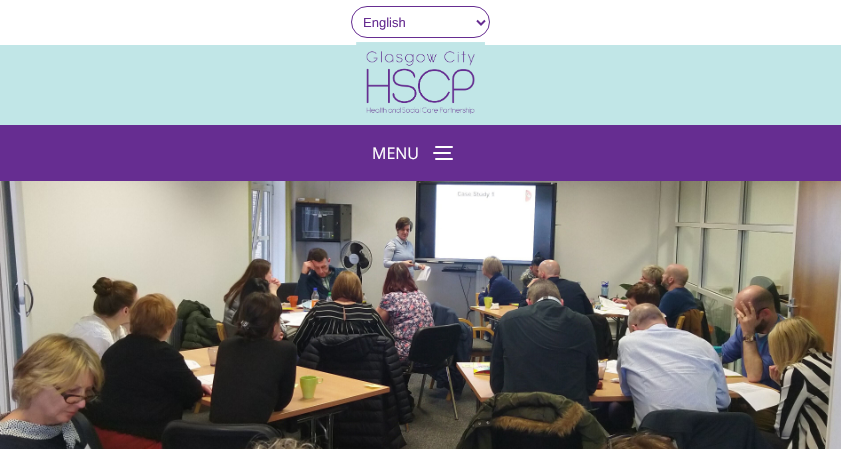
#include "include/core/SkBlurTypes.h"
#include "include/core/SkCanvas.h"
#include "include/core/SkData.h"
#include "include/core/SkFont.h"
#include "include/core/SkFontMgr.h"
#include "include/core/SkImage.h"
#include "include/core/SkMaskFilter.h"
#include "include/core/SkPaint.h"
#include "include/core/SkPathBuilder.h"
#include "include/core/SkTextBlob.h"
#include "include/effects/SkDashPathEffect.h"
#include "include/effects/SkGradientShader.h"
#include "include/utils/SkParsePath.h"

extern sk_sp<SkFontMgr> fontMgr;

static SkFont font(const char* family, int weight, float size, bool italic = false) {
    SkFontStyle style(weight, SkFontStyle::kNormal_Width,
        italic ? SkFontStyle::kItalic_Slant : SkFontStyle::kUpright_Slant);
    SkFont result(fontMgr->matchFamilyStyle(family, style), size);
    result.setSubpixel(true);
    return result;
}

static void drawLabel(SkCanvas* canvas, const char* s, float x, float y, const SkFont& font, SkColor color) {
    SkPaint ink(SkColor4f::FromColor(color));
    ink.setAntiAlias(true);
    canvas->drawString(s, x, y, font, ink);
}

static void fillRect(SkCanvas* canvas, float x, float y, float w, float h, SkColor color) {
    SkPaint ink(SkColor4f::FromColor(color));
    ink.setAntiAlias(true);
    canvas->drawRect(SkRect::MakeXYWH(x, y, w, h), ink);
}

static void fillRRect(SkCanvas* canvas, float x, float y, float w, float h, float radius, SkColor color) {
    SkPaint ink(SkColor4f::FromColor(color));
    ink.setAntiAlias(true);
    canvas->drawRoundRect(SkRect::MakeXYWH(x, y, w, h), radius, radius, ink);
}

static void drawPhoto(SkCanvas* canvas, const char* path, float x, float y, float w, float h) {
    auto image = SkImages::DeferredFromEncodedData(SkData::MakeFromFileName(path));
    canvas->drawImageRect(image, SkRect::MakeXYWH(x, y, w, h), SkSamplingOptions());
}

static SkPath parsePath(const char* data, bool evenOdd = false) {
    SkPath result = *SkParsePath::FromSVGString(data);
    if (evenOdd) result.setFillType(SkPathFillType::kEvenOdd);
    return result;
}

void draw(SkCanvas* canvas) {
    SkPaint paint;
    paint.setAntiAlias(true);
    canvas->clear(0xFFFFFFFF);
    paint.setStroke(true);
    paint.setStrokeWidth(1);
    paint.setColor(0xFF662D91);
    canvas->drawRoundRect(SkRect::MakeXYWH(351.5f, 6.5f, 138, 31), 15.5f, 15.5f, paint);
    paint.setStrokeWidth(2);
    canvas->drawPath(parsePath("M477 20.5L481 24.5L485 20.5"), paint);
    SkFont font1 = font("Liberation Sans", 400, 13);
    drawLabel(canvas, "English", 363, 27, font1, 0xFF662D91);
    fillRect(canvas, 0, 45, 841, 80, 0xFFC1E6E7);
    drawPhoto(canvas, "assets/img1.png", 356, 42, 129, 72);
    fillRect(canvas, 0, 125, 841, 56, 0xFF662D91);
    SkFont font2 = font("Open Sans", 400, 16);
    drawLabel(canvas, "MENU", 372, 159, font2, 0xFFFFFFFF);
    fillRRect(canvas, 435, 146, 18, 2, 1, 0xFFFFFFFF);
    fillRRect(canvas, 433, 152, 18, 2, 1, 0xFFFFFFFF);
    fillRRect(canvas, 435, 158, 18, 2, 1, 0xFFFFFFFF);
    drawPhoto(canvas, "assets/img2.png", 0, 181, 841, 268);
}
